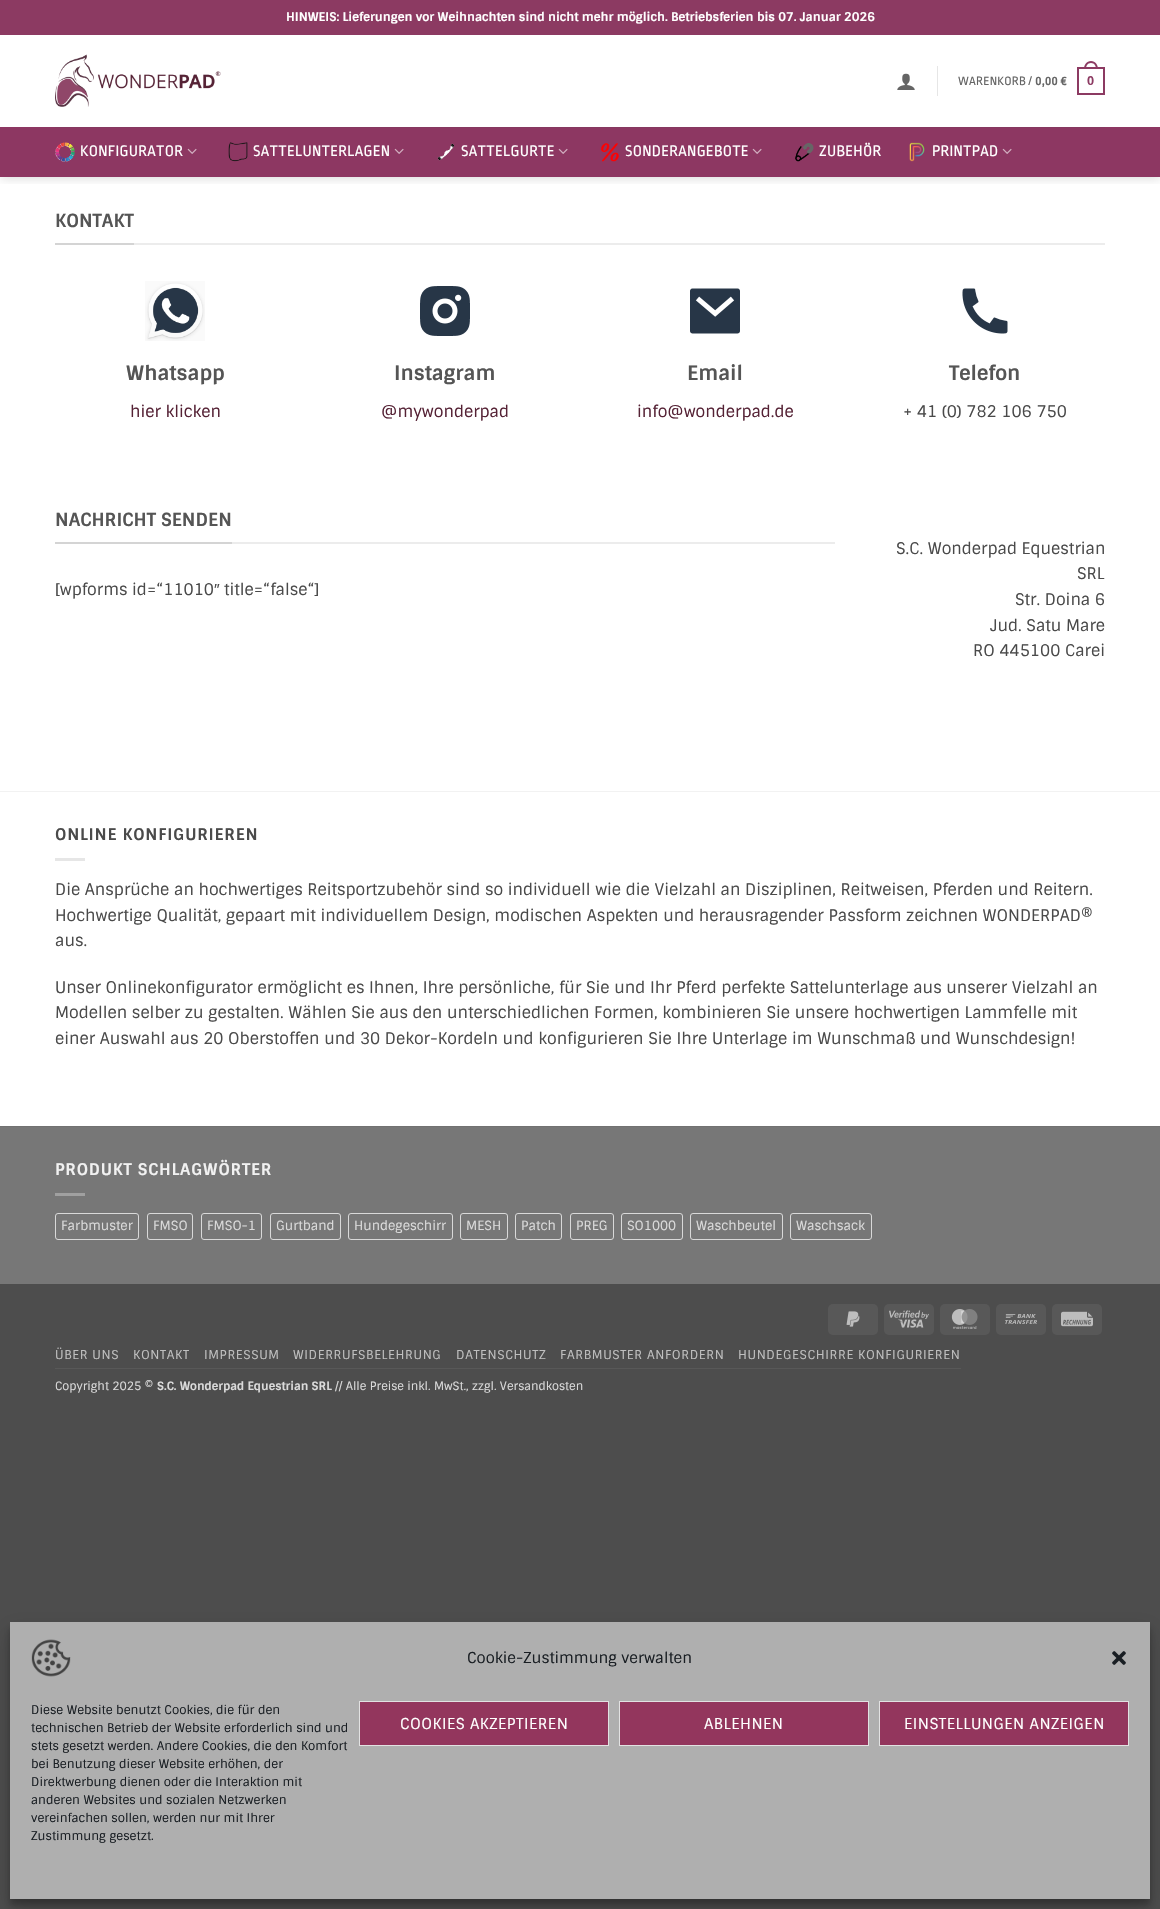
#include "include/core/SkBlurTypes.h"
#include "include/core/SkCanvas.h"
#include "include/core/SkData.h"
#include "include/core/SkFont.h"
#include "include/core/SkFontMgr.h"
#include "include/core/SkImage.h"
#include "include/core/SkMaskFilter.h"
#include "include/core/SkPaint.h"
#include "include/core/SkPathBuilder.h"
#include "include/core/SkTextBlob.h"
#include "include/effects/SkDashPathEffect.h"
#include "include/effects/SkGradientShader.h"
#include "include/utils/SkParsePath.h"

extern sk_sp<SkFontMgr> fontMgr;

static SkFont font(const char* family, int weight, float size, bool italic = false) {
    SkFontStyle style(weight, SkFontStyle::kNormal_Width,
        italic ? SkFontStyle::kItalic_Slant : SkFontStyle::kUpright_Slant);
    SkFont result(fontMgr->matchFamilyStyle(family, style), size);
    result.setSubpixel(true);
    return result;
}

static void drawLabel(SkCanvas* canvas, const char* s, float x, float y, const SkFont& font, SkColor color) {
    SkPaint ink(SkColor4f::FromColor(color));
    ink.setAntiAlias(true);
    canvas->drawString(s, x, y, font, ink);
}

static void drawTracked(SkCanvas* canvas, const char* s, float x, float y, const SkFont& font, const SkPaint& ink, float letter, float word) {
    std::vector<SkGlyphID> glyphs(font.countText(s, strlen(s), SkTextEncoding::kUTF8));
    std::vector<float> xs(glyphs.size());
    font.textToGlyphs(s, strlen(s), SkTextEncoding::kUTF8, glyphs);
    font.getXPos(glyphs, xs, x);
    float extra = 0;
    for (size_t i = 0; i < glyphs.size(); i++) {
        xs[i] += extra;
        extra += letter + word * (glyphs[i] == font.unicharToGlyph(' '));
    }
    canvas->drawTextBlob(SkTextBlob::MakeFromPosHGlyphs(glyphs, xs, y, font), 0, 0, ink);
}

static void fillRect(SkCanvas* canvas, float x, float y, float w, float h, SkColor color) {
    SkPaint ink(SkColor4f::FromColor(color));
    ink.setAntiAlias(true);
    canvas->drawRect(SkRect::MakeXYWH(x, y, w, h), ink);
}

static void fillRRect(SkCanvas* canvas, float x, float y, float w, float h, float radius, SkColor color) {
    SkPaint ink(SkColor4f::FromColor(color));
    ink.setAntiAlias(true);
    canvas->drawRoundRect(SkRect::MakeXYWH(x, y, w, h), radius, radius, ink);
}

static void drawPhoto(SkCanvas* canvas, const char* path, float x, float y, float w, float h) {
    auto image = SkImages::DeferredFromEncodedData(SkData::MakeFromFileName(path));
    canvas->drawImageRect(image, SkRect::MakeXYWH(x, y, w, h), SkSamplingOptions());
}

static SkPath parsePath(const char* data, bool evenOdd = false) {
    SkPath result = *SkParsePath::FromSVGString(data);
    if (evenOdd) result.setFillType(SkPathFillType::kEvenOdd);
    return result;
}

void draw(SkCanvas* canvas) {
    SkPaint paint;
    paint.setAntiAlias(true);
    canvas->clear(0xFF4D4D4D);
    fillRect(canvas, 0, 35, 1160, 1091, 0xFFFFFFFF);
    canvas->save();
    canvas->clipRect(SkRect::MakeXYWH(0, 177, 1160, 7));
    paint.setColor(0x26000000);
    paint.setMaskFilter(SkMaskFilter::MakeBlur(kNormal_SkBlurStyle, 5));
    canvas->drawRect(SkRect::MakeXYWH(1, 1, 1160, 177), paint);
    paint.setMaskFilter(nullptr);
    canvas->restore();
    fillRect(canvas, 0, 0, 1160, 35, 0xFF8C3A62);
    SkFont font1 = font("Sintony", 700, 12);
    drawLabel(canvas, "HINWEIS: Lieferungen vor Weihnachten sind nicht mehr möglich. Betriebsferien bis 07. Januar 2026", 286, 21, font1, 0xFFFFFFFF);
    drawPhoto(canvas, "assets/img1.png", 55, 54, 166, 53);
    drawPhoto(canvas, "assets/img2.png", 897, 73, 18, 17);
    fillRect(canvas, 937, 66, 1, 30, 0xFFE6E6E6);
    SkFont font2 = font("Ropa Sans", 400, 12.75f);
    paint.setColor(0xFF656565);
    drawTracked(canvas, "WARENKORB /", 958, 85, font2, paint, 0.25f, 0);
    SkFont font3 = font("Ropa Sans", 700, 12.75f);
    drawTracked(canvas, "0,00 €", 1035, 85, font3, paint, 0.25f, 0);
    paint.setStroke(true);
    paint.setStrokeWidth(2);
    paint.setColor(0xFF8C3A62);
    canvas->drawRect(SkRect::MakeXYWH(1078, 68, 26, 26), paint);
    paint.setStroke(false);
    canvas->drawPath(parsePath("M1091 61C1095.5 61 1098 65 1098 69H1084C1084 65 1086.5 61 1091 61ZM1091 63C1094.5 63 1096 66 1096 69H1086C1086 66 1087.5 63 1091 63Z", true), paint);
    SkFont font4 = font("Liberation Sans", 700, 12.75f);
    drawTracked(canvas, "0", 1087, 85, font4, paint, 0.25f, 0);
    fillRect(canvas, 0, 127, 1160, 50, 0xFF8D3762);
    fillRect(canvas, 55, 127, 1050, 1, 0xFF863960);
    drawPhoto(canvas, "assets/img3.png", 55, 142, 20, 20);
    SkFont font5 = font("Ropa Sans", 400, 16);
    paint.setColor(0xFFFFFFFF);
    drawTracked(canvas, "KONFIGURATOR", 80, 156, font5, paint, 0.3f, 0);
    drawPhoto(canvas, "assets/img4.png", 187, 148, 10, 6);
    drawPhoto(canvas, "assets/img5.png", 228, 142, 20, 20);
    drawTracked(canvas, "SATTELUNTERLAGEN", 253, 156, font5, paint, 0.3f, 0);
    drawPhoto(canvas, "assets/img4.png", 394, 148, 10, 6);
    drawPhoto(canvas, "assets/img6.png", 437, 143, 18, 18);
    drawTracked(canvas, "SATTELGURTE", 461, 156, font5, paint, 0.3f, 0);
    drawPhoto(canvas, "assets/img4.png", 558, 148, 10, 6);
    drawPhoto(canvas, "assets/img7.png", 600, 143, 19, 19);
    drawTracked(canvas, "SONDERANGEBOTE", 625, 156, font5, paint, 0.3f, 0);
    drawPhoto(canvas, "assets/img4.png", 752, 148, 10, 6);
    drawPhoto(canvas, "assets/img8.png", 795, 143, 19, 19);
    drawTracked(canvas, "ZUBEHÖR", 819, 156, font5, paint, 0.3f, 0);
    drawPhoto(canvas, "assets/img9.png", 909, 142, 16, 20);
    drawTracked(canvas, "PRINTPAD", 932, 156, font5, paint, 0.3f, 0);
    drawPhoto(canvas, "assets/img4.png", 1002, 148, 10, 6);
    fillRect(canvas, 134, 243, 971, 2, 0xFFECECEC);
    fillRect(canvas, 55, 243, 79, 2, 0xFFD4D4D4);
    SkFont font6 = font("Sintony", 700, 18);
    drawLabel(canvas, "KONTAKT", 55, 227, font6, 0xFF555555);
    drawPhoto(canvas, "assets/img10.png", 145, 281, 60, 60);
    SkFont font7 = font("Sintony", 700, 20);
    drawLabel(canvas, "Whatsapp", 126, 380, font7, 0xFF555555);
    SkFont font8 = font("Sintony", 400, 16);
    drawLabel(canvas, "hier klicken", 130, 417, font8, 0xFF552235);
    drawPhoto(canvas, "assets/img11.png", 420, 286, 50, 50);
    drawLabel(canvas, "Instagram", 394, 380, font7, 0xFF555555);
    drawLabel(canvas, "@mywonderpad", 381, 417, font8, 0xFF552235);
    drawPhoto(canvas, "assets/img12.png", 690, 288, 50, 46);
    drawLabel(canvas, "Email", 687, 380, font7, 0xFF555555);
    drawLabel(canvas, "info@wonderpad.de", 637, 417, font8, 0xFF552235);
    drawPhoto(canvas, "assets/img13.png", 962, 288, 46, 46);
    drawLabel(canvas, "Telefon", 949, 380, font7, 0xFF555555);
    drawLabel(canvas, "+ 41 (0) 782 106 750", 903, 417, font8, 0xFF4A4A4A);
    fillRect(canvas, 232, 542, 603, 2, 0xFFECECEC);
    fillRect(canvas, 55, 542, 177, 2, 0xFFD4D4D4);
    drawLabel(canvas, "NACHRICHT SENDEN", 55, 526, font6, 0xFF555555);
    drawLabel(canvas, "[wpforms id=“11010", 55, 595, font8, 0xFF4A4A4A);
    SkFont font9 = font("Liberation Sans", 400, 16);
    drawLabel(canvas, "″", 214, 595, font9, 0xFF4A4A4A);
    drawLabel(canvas, "title=“false“]", 224, 595, font8, 0xFF4A4A4A);
    drawLabel(canvas, "S.C. Wonderpad Equestrian", 896, 554, font8, 0xFF4A4A4A);
    drawLabel(canvas, "SRL", 1077, 579, font8, 0xFF4A4A4A);
    drawLabel(canvas, "Str. Doina 6", 1015, 605, font8, 0xFF4A4A4A);
    drawLabel(canvas, "Jud. Satu Mare", 990, 631, font8, 0xFF4A4A4A);
    drawLabel(canvas, "RO 445100 Carei", 973, 656, font8, 0xFF4A4A4A);
    fillRect(canvas, 0, 791, 1160, 1, 0xFFF2F2F2);
    SkFont font10 = font("Sintony", 700, 16);
    paint.setColor(0xFF4A4A4A);
    drawTracked(canvas, "ONLINE KONFIGURIEREN", 55, 840, font10, paint, 0.8f, 0);
    fillRect(canvas, 55, 858, 30, 3, 0xFFE6E6E6);
    drawLabel(canvas, "Die Ansprüche an hochwertiges Reitsportzubehör sind so individuell wie die Vielzahl an Disziplinen, Reitweisen, Pferden und Reitern.", 55, 895, font8, 0xFF4A4A4A);
    drawLabel(canvas, "Hochwertige Qualität, gepaart mit individuellem Design, modischen Aspekten und herausragender Passform zeichnen WONDERPAD®", 55, 921, font8, 0xFF4A4A4A);
    drawLabel(canvas, "aus.", 55, 946, font8, 0xFF4A4A4A);
    drawLabel(canvas, "Unser Onlinekonfigurator ermöglicht es Ihnen, Ihre persönliche, für Sie und Ihr Pferd perfekte Sattelunterlage aus unserer Vielzahl an", 55, 993, font8, 0xFF4A4A4A);
    drawLabel(canvas, "Modellen selber zu gestalten. Wählen Sie aus den unterschiedlichen Formen, kombinieren Sie unsere hochwertigen Lammfelle mit", 55, 1018, font8, 0xFF4A4A4A);
    drawLabel(canvas, "einer Auswahl aus 20 Oberstoffen und 30 Dekor-Kordeln und konfigurieren Sie Ihre Unterlage im Wunschmaß und Wunschdesign!", 55, 1044, font8, 0xFF4A4A4A);
    fillRect(canvas, 0, 1127, 1160, 157, 0xFF777777);
    fillRect(canvas, 0, 1126, 1160, 1, 0xFF717171);
    paint.setColor(0xFFF1F1F1);
    drawTracked(canvas, "PRODUKT SCHLAGWÖRTER", 55, 1175, font10, paint, 0.8f, 0);
    fillRect(canvas, 55, 1193, 30, 3, 0xFFA0A0A0);
    paint.setStroke(true);
    paint.setStrokeWidth(1);
    paint.setColor(0xFFD9D9D9);
    canvas->drawRoundRect(SkRect::MakeXYWH(55.5f, 1213.5f, 83, 26), 2.5f, 2.5f, paint);
    SkFont font11 = font("Sintony", 400, 12.75f);
    drawLabel(canvas, "Farbmuster", 61, 1230, font11, 0xFFDBDBDB);
    canvas->drawRoundRect(SkRect::MakeXYWH(147.5f, 1213.5f, 45, 26), 2.5f, 2.5f, paint);
    drawLabel(canvas, "FMSO", 153, 1230, font11, 0xFFDBDBDB);
    canvas->drawRoundRect(SkRect::MakeXYWH(201.5f, 1213.5f, 60, 26), 2.5f, 2.5f, paint);
    drawLabel(canvas, "FMSO-1", 207, 1230, font11, 0xFFDBDBDB);
    canvas->drawRoundRect(SkRect::MakeXYWH(270.5f, 1213.5f, 70, 26), 2.5f, 2.5f, paint);
    drawLabel(canvas, "Gurtband", 276, 1230, font11, 0xFFDBDBDB);
    canvas->drawRoundRect(SkRect::MakeXYWH(348.5f, 1213.5f, 104, 26), 2.5f, 2.5f, paint);
    drawLabel(canvas, "Hundegeschirr", 354, 1230, font11, 0xFFDBDBDB);
    canvas->drawRoundRect(SkRect::MakeXYWH(460.5f, 1213.5f, 47, 26), 2.5f, 2.5f, paint);
    drawLabel(canvas, "MESH", 466, 1230, font11, 0xFFDBDBDB);
    canvas->drawRoundRect(SkRect::MakeXYWH(515.5f, 1213.5f, 46, 26), 2.5f, 2.5f, paint);
    drawLabel(canvas, "Patch", 521, 1230, font11, 0xFFDBDBDB);
    canvas->drawRoundRect(SkRect::MakeXYWH(570.5f, 1213.5f, 43, 26), 2.5f, 2.5f, paint);
    drawLabel(canvas, "PREG", 576, 1230, font11, 0xFFDBDBDB);
    canvas->drawRoundRect(SkRect::MakeXYWH(621.5f, 1213.5f, 61, 26), 2.5f, 2.5f, paint);
    drawLabel(canvas, "SO1000", 627, 1230, font11, 0xFFDBDBDB);
    canvas->drawRoundRect(SkRect::MakeXYWH(690.5f, 1213.5f, 92, 26), 2.5f, 2.5f, paint);
    drawLabel(canvas, "Waschbeutel", 696, 1230, font11, 0xFFDBDBDB);
    canvas->drawRoundRect(SkRect::MakeXYWH(790.5f, 1213.5f, 81, 26), 2.5f, 2.5f, paint);
    drawLabel(canvas, "Waschsack", 796, 1230, font11, 0xFFDBDBDB);
    fillRRect(canvas, 828, 1304, 50, 31, 5, 0xFF585858);
    drawPhoto(canvas, "assets/img14.png", 846, 1311, 14, 16);
    fillRRect(canvas, 884, 1304, 50, 31, 5, 0xFF585858);
    drawPhoto(canvas, "assets/img15.png", 889, 1310, 40, 18);
    fillRRect(canvas, 940, 1304, 50, 31, 5, 0xFF585858);
    drawPhoto(canvas, "assets/img16.png", 951, 1309, 27, 20);
    fillRRect(canvas, 996, 1304, 50, 31, 5, 0xFF585858);
    drawPhoto(canvas, "assets/img17.png", 1005, 1314, 32, 10);
    fillRRect(canvas, 1052, 1304, 50, 31, 5, 0xFF585858);
    drawPhoto(canvas, "assets/img18.png", 1061, 1311, 32, 16);
    fillRect(canvas, 55, 1368, 906, 1, 0xFF585858);
    SkFont font12 = font("Sintony", 400, 12.25f);
    paint.setStroke(false);
    paint.setColor(0xFFBFBFBF);
    drawTracked(canvas, "ÜBER UNS", 55, 1359, font12, paint, 0.6f, 0);
    drawTracked(canvas, "KONTAKT", 133, 1359, font12, paint, 0.6f, 0);
    drawTracked(canvas, "IMPRESSUM", 204, 1359, font12, paint, 0.6f, 0);
    drawTracked(canvas, "WIDERRUFSBELEHRUNG", 293, 1359, font12, paint, 0.6f, 0);
    drawTracked(canvas, "DATENSCHUTZ", 456, 1359, font12, paint, 0.6f, 0);
    drawTracked(canvas, "FARBMUSTER ANFORDERN", 560, 1359, font12, paint, 0.6f, 0);
    drawTracked(canvas, "HUNDEGESCHIRRE KONFIGURIEREN", 738, 1359, font12, paint, 0.6f, 0);
    SkFont font13 = font("Sintony", 400, 11.5f);
    drawLabel(canvas, "Copyright 2025 ©", 55, 1390, font13, 0xFFDBDBDB);
    SkFont font14 = font("Sintony", 700, 11.5f);
    drawLabel(canvas, "S.C. Wonderpad Equestrian SRL", 157, 1390, font14, 0xFFDBDBDB);
    drawLabel(canvas, "// Alle Preise inkl. MwSt., zzgl. Versandkosten", 335, 1390, font13, 0xFFDBDBDB);
    paint.setColor(0x3B000000);
    paint.setMaskFilter(SkMaskFilter::MakeBlur(kNormal_SkBlurStyle, 3));
    canvas->drawRect(SkRect::MakeXYWH(10, 1628, 1140, 277), paint);
    paint.setMaskFilter(nullptr);
    paint.setColor(0x30000000);
    paint.setMaskFilter(SkMaskFilter::MakeBlur(kNormal_SkBlurStyle, 10));
    canvas->drawRect(SkRect::MakeXYWH(10, 1632, 1140, 277), paint);
    paint.setMaskFilter(nullptr);
    fillRect(canvas, 10, 1622, 1140, 277, 0xFFAFAFAF);
    drawPhoto(canvas, "assets/img19.png", 31, 1639, 40, 38);
    SkFont font15 = font("Sintony", 400, 15);
    drawLabel(canvas, "Cookie-Zustimmung verwalten", 467, 1663, font15, 0xFF191E23);
    drawPhoto(canvas, "assets/img20.png", 1112, 1651, 14, 14);
    SkFont font16 = font("Sintony", 400, 12);
    drawLabel(canvas, "Diese Website benutzt Cookies, die für den", 31, 1714, font16, 0xFF191E23);
    drawLabel(canvas, "technischen Betrieb der Website erforderlich sind und", 31, 1732, font16, 0xFF191E23);
    drawLabel(canvas, "stets gesetzt werden. Andere Cookies, die den Komfort", 31, 1750, font16, 0xFF191E23);
    drawLabel(canvas, "bei Benutzung dieser Website erhöhen, der", 31, 1768, font16, 0xFF191E23);
    drawLabel(canvas, "Direktwerbung dienen oder die Interaktion mit", 31, 1786, font16, 0xFF191E23);
    drawLabel(canvas, "anderen Websites und sozialen Netzwerken", 31, 1804, font16, 0xFF191E23);
    drawLabel(canvas, "vereinfachen sollen, werden nur mit Ihrer", 31, 1822, font16, 0xFF191E23);
    drawLabel(canvas, "Zustimmung gesetzt.", 31, 1840, font16, 0xFF191E23);
    paint.setColor(0xFF93365D);
    canvas->drawRect(SkRect::MakeXYWH(359.5f, 1701.5f, 249, 44), paint);
    paint.setStroke(true);
    paint.setColor(0xFFE2E2E2);
    canvas->drawRect(SkRect::MakeXYWH(359.5f, 1701.5f, 249, 44), paint);
    paint.setStroke(false);
    paint.setColor(0xFFFFFFFF);
    drawTracked(canvas, "COOKIES AKZEPTIEREN", 400, 1729, font15, paint, 0.45f, 0);
    paint.setColor(0xFF93365D);
    canvas->drawRect(SkRect::MakeXYWH(619.5f, 1701.5f, 249, 44), paint);
    paint.setStroke(true);
    paint.setColor(0xFFE2E2E2);
    canvas->drawRect(SkRect::MakeXYWH(619.5f, 1701.5f, 249, 44), paint);
    paint.setStroke(false);
    paint.setColor(0xFFFFFFFF);
    drawTracked(canvas, "ABLEHNEN", 704, 1729, font15, paint, 0.45f, 0);
    paint.setColor(0xFF93365D);
    canvas->drawRect(SkRect::MakeXYWH(879.5f, 1701.5f, 249, 44), paint);
    paint.setStroke(true);
    paint.setColor(0xFFE2E2E2);
    canvas->drawRect(SkRect::MakeXYWH(879.5f, 1701.5f, 249, 44), paint);
    paint.setStroke(false);
    paint.setColor(0xFFFFFFFF);
    drawTracked(canvas, "EINSTELLUNGEN ANZEIGEN", 904, 1729, font15, paint, 0.45f, 0);
}
